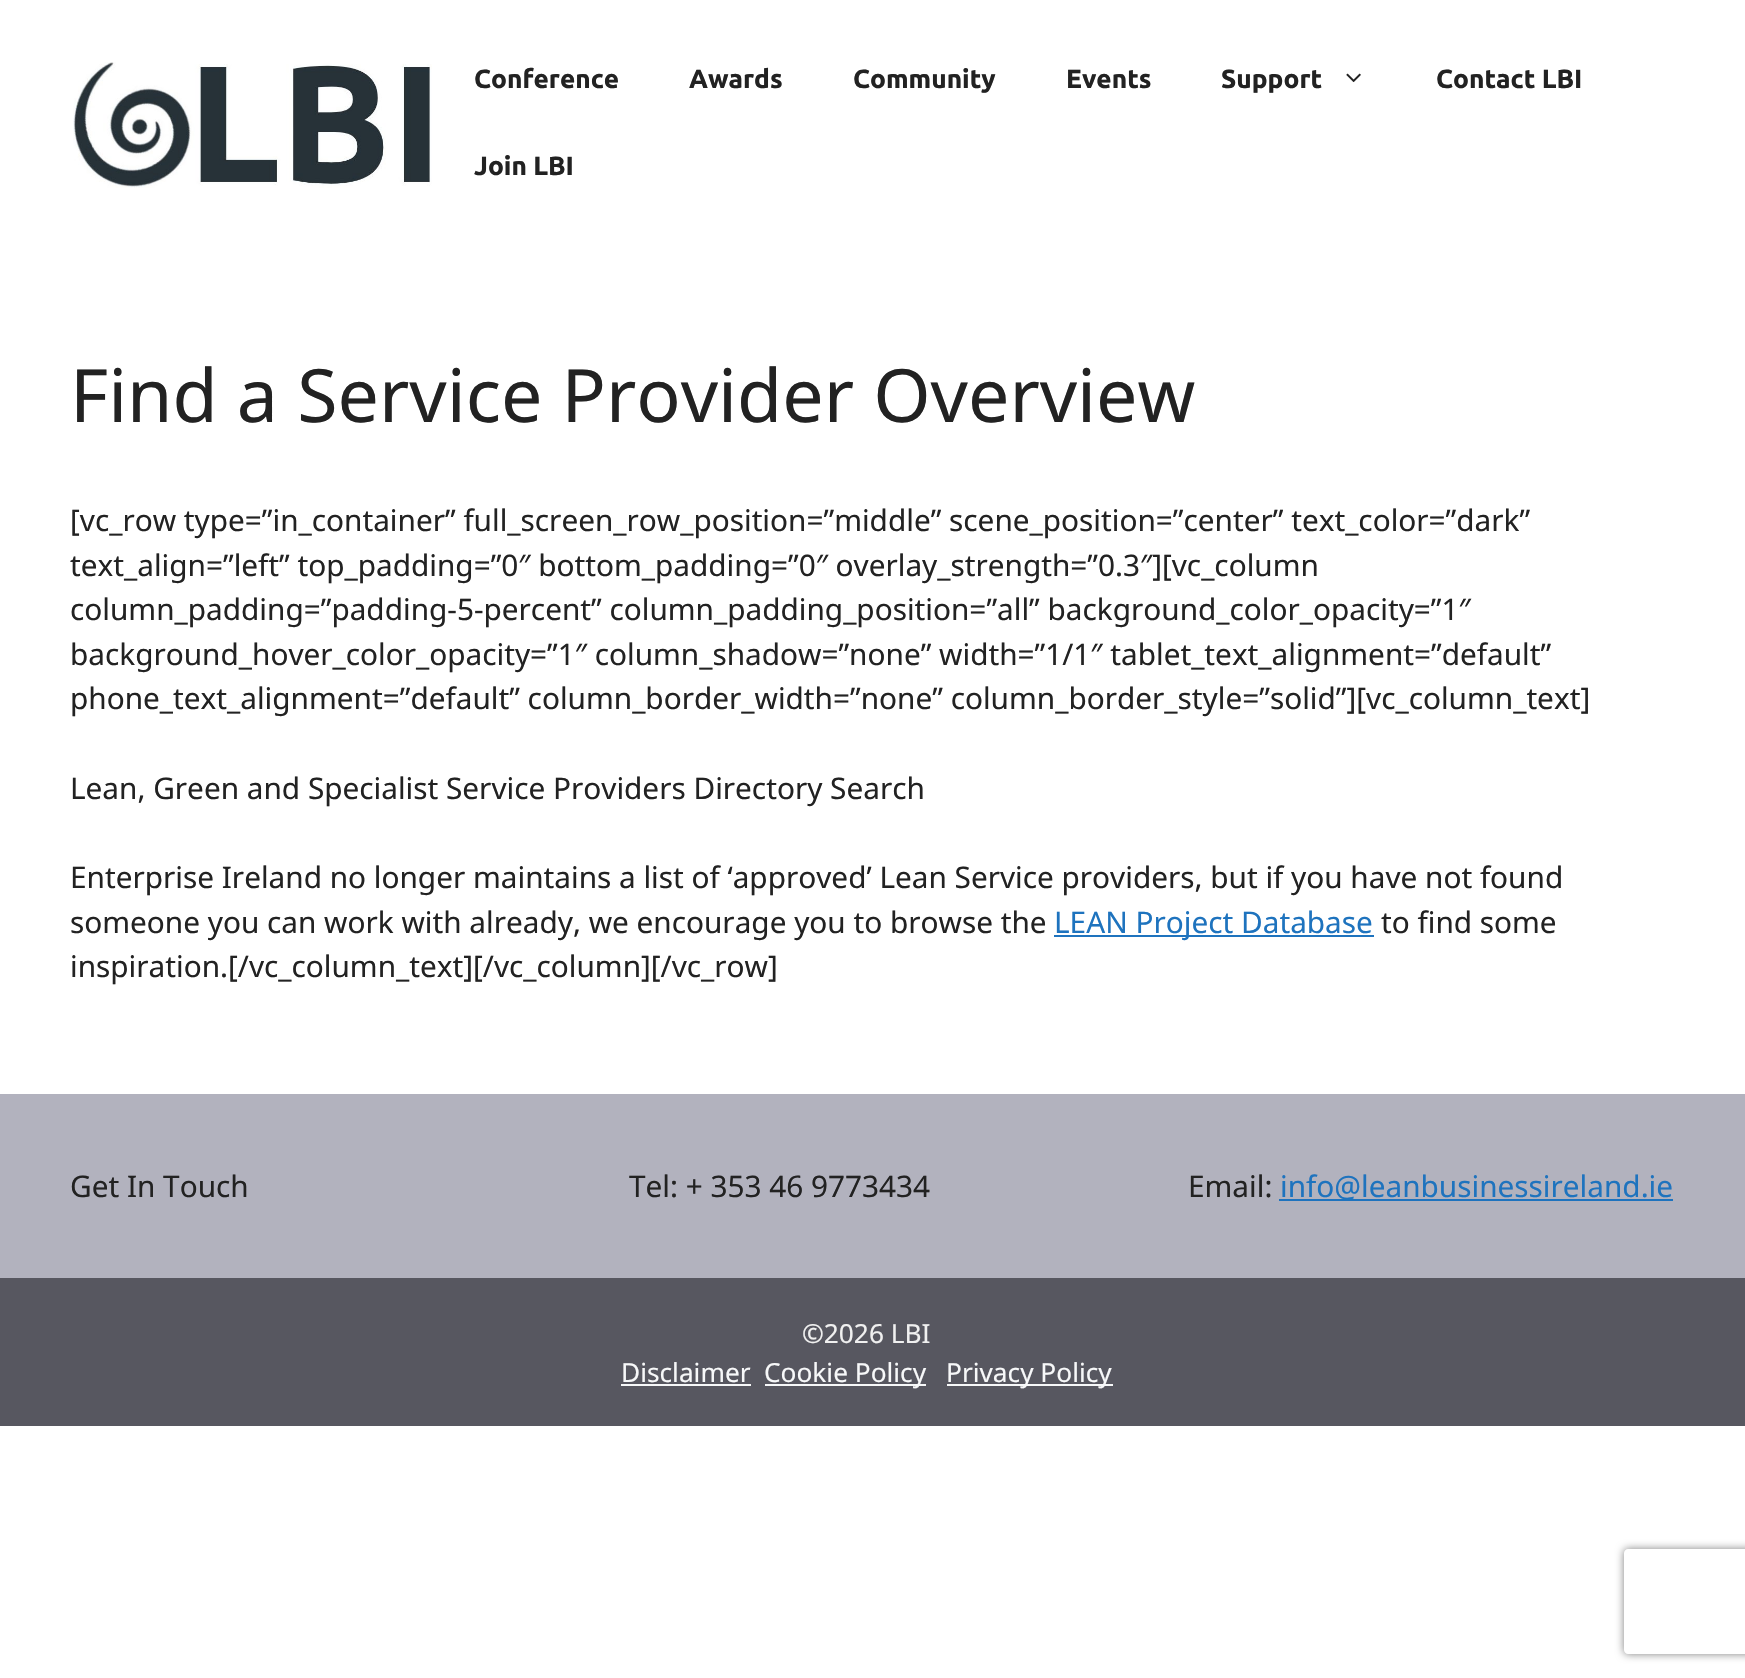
#include "include/core/SkBlurTypes.h"
#include "include/core/SkCanvas.h"
#include "include/core/SkData.h"
#include "include/core/SkFont.h"
#include "include/core/SkFontMgr.h"
#include "include/core/SkImage.h"
#include "include/core/SkMaskFilter.h"
#include "include/core/SkPaint.h"
#include "include/core/SkPathBuilder.h"
#include "include/core/SkTextBlob.h"
#include "include/effects/SkDashPathEffect.h"
#include "include/effects/SkGradientShader.h"
#include "include/utils/SkParsePath.h"

extern sk_sp<SkFontMgr> fontMgr;

static SkFont font(const char* family, int weight, float size, bool italic = false) {
    SkFontStyle style(weight, SkFontStyle::kNormal_Width,
        italic ? SkFontStyle::kItalic_Slant : SkFontStyle::kUpright_Slant);
    SkFont result(fontMgr->matchFamilyStyle(family, style), size);
    result.setSubpixel(true);
    return result;
}

static void drawLabel(SkCanvas* canvas, const char* s, float x, float y, const SkFont& font, SkColor color) {
    SkPaint ink(SkColor4f::FromColor(color));
    ink.setAntiAlias(true);
    canvas->drawString(s, x, y, font, ink);
}

static void fillRect(SkCanvas* canvas, float x, float y, float w, float h, SkColor color) {
    SkPaint ink(SkColor4f::FromColor(color));
    ink.setAntiAlias(true);
    canvas->drawRect(SkRect::MakeXYWH(x, y, w, h), ink);
}

static void drawPhoto(SkCanvas* canvas, const char* path, float x, float y, float w, float h) {
    auto image = SkImages::DeferredFromEncodedData(SkData::MakeFromFileName(path));
    canvas->drawImageRect(image, SkRect::MakeXYWH(x, y, w, h), SkSamplingOptions());
}

static SkPath parsePath(const char* data, bool evenOdd = false) {
    SkPath result = *SkParsePath::FromSVGString(data);
    if (evenOdd) result.setFillType(SkPathFillType::kEvenOdd);
    return result;
}

void draw(SkCanvas* canvas) {
    SkPaint paint;
    paint.setAntiAlias(true);
    canvas->clear(0xFFFFFFFF);
    drawPhoto(canvas, "assets/img1.png", 73, 62, 359, 126);
    SkFont font1 = font("Ubuntu", 700, 26.25f);
    drawLabel(canvas, "Conference", 474, 88, font1, 0xFF222222);
    drawLabel(canvas, "Awards", 689, 88, font1, 0xFF222222);
    drawLabel(canvas, "Community", 853, 88, font1, 0xFF222222);
    drawLabel(canvas, "Events", 1066, 88, font1, 0xFF222222);
    drawLabel(canvas, "Support", 1221, 88, font1, 0xFF222222);
    drawPhoto(canvas, "assets/img2.png", 1346, 73, 15, 10);
    drawLabel(canvas, "Contact LBI", 1436, 88, font1, 0xFF222222);
    drawLabel(canvas, "Join LBI", 474, 175, font1, 0xFF222222);
    SkFont font2 = font("Noto Sans", 400, 73.5f);
    drawLabel(canvas, "Find a Service Provider Overview", 70, 422, font2, 0xFF222222);
    SkFont font3 = font("Noto Sans", 400, 29.75f);
    drawLabel(canvas, "[vc_row type=”in_container” full_screen_row_position=”middle” scene_position=”center” text_color=”dark”", 70, 531, font3, 0xFF222222);
    drawLabel(canvas, "text_align=”left” top_padding=”0″ bottom_padding=”0″ overlay_strength=”0.3″][vc_column", 70, 576, font3, 0xFF222222);
    drawLabel(canvas, "column_padding=”padding-5-percent” column_padding_position=”all” background_color_opacity=”1″", 70, 620, font3, 0xFF222222);
    drawLabel(canvas, "background_hover_color_opacity=”1″ column_shadow=”none” width=”1/1″ tablet_text_alignment=”default”", 70, 665, font3, 0xFF222222);
    drawLabel(canvas, "phone_text_alignment=”default” column_border_width=”none” column_border_style=”solid”][vc_column_text]", 70, 709, font3, 0xFF222222);
    drawLabel(canvas, "Lean, Green and Specialist Service Providers Directory Search", 70, 799, font3, 0xFF222222);
    drawLabel(canvas, "Enterprise Ireland no longer maintains a list of ‘approved’ Lean Service providers, but if you have not found", 70, 888, font3, 0xFF222222);
    drawLabel(canvas, "someone you can work with already, we encourage you to browse the", 70, 933, font3, 0xFF222222);
    fillRect(canvas, 1054, 935, 320, 2, 0xFF1E73BE);
    drawLabel(canvas, "LEAN Project Database", 1054, 933, font3, 0xFF1E73BE);
    drawLabel(canvas, "to find some", 1381, 933, font3, 0xFF222222);
    drawLabel(canvas, "inspiration.[/vc_column_text][/vc_column][/vc_row]", 70, 977, font3, 0xFF222222);
    fillRect(canvas, 0, 1094, 1745, 184, 0xFFB2B2BE);
    drawLabel(canvas, "Get In Touch", 70, 1197, font3, 0xFF222222);
    drawLabel(canvas, "Tel: + 353 46 9773434", 629, 1197, font3, 0xFF222222);
    drawLabel(canvas, "Email:", 1188, 1197, font3, 0xFF222222);
    fillRect(canvas, 1279, 1199, 394, 2, 0xFF1E73BE);
    drawLabel(canvas, "info@leanbusinessireland.ie", 1280, 1197, font3, 0xFF1E73BE);
    fillRect(canvas, 0, 1278, 1745, 148, 0xFF575760);
    SkFont font4 = font("Noto Sans", 400, 26.25f);
    drawLabel(canvas, "©2026 LBI", 802, 1343, font4, 0xFFF0F0F0);
    drawLabel(canvas, "Disclaimer", 621, 1382, font4, 0xFFF7F8F9);
    fillRect(canvas, 621, 1384, 130, 2, 0xFFF7F8F9);
    fillRect(canvas, 765, 1384, 161, 2, 0xFFF7F8F9);
    drawLabel(canvas, "Cookie Policy", 764, 1382, font4, 0xFFF7F8F9);
    fillRect(canvas, 947, 1384, 166, 2, 0xFFF7F8F9);
    drawLabel(canvas, "Privacy Policy", 946, 1382, font4, 0xFFF7F8F9);
    canvas->save();
    canvas->clipPath(parsePath("M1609 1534H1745V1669H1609ZM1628 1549H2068C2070 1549 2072 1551 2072 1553V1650C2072 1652 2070 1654 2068 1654H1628C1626 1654 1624 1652 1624 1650V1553C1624 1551 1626 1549 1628 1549Z", true), true);
    paint.setColor(0xFF808080);
    paint.setMaskFilter(SkMaskFilter::MakeBlur(kNormal_SkBlurStyle, 4.5f));
    canvas->drawRoundRect(SkRect::MakeXYWH(1624, 1549, 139, 105), 4, 4, paint);
    paint.setMaskFilter(nullptr);
    canvas->restore();
}
